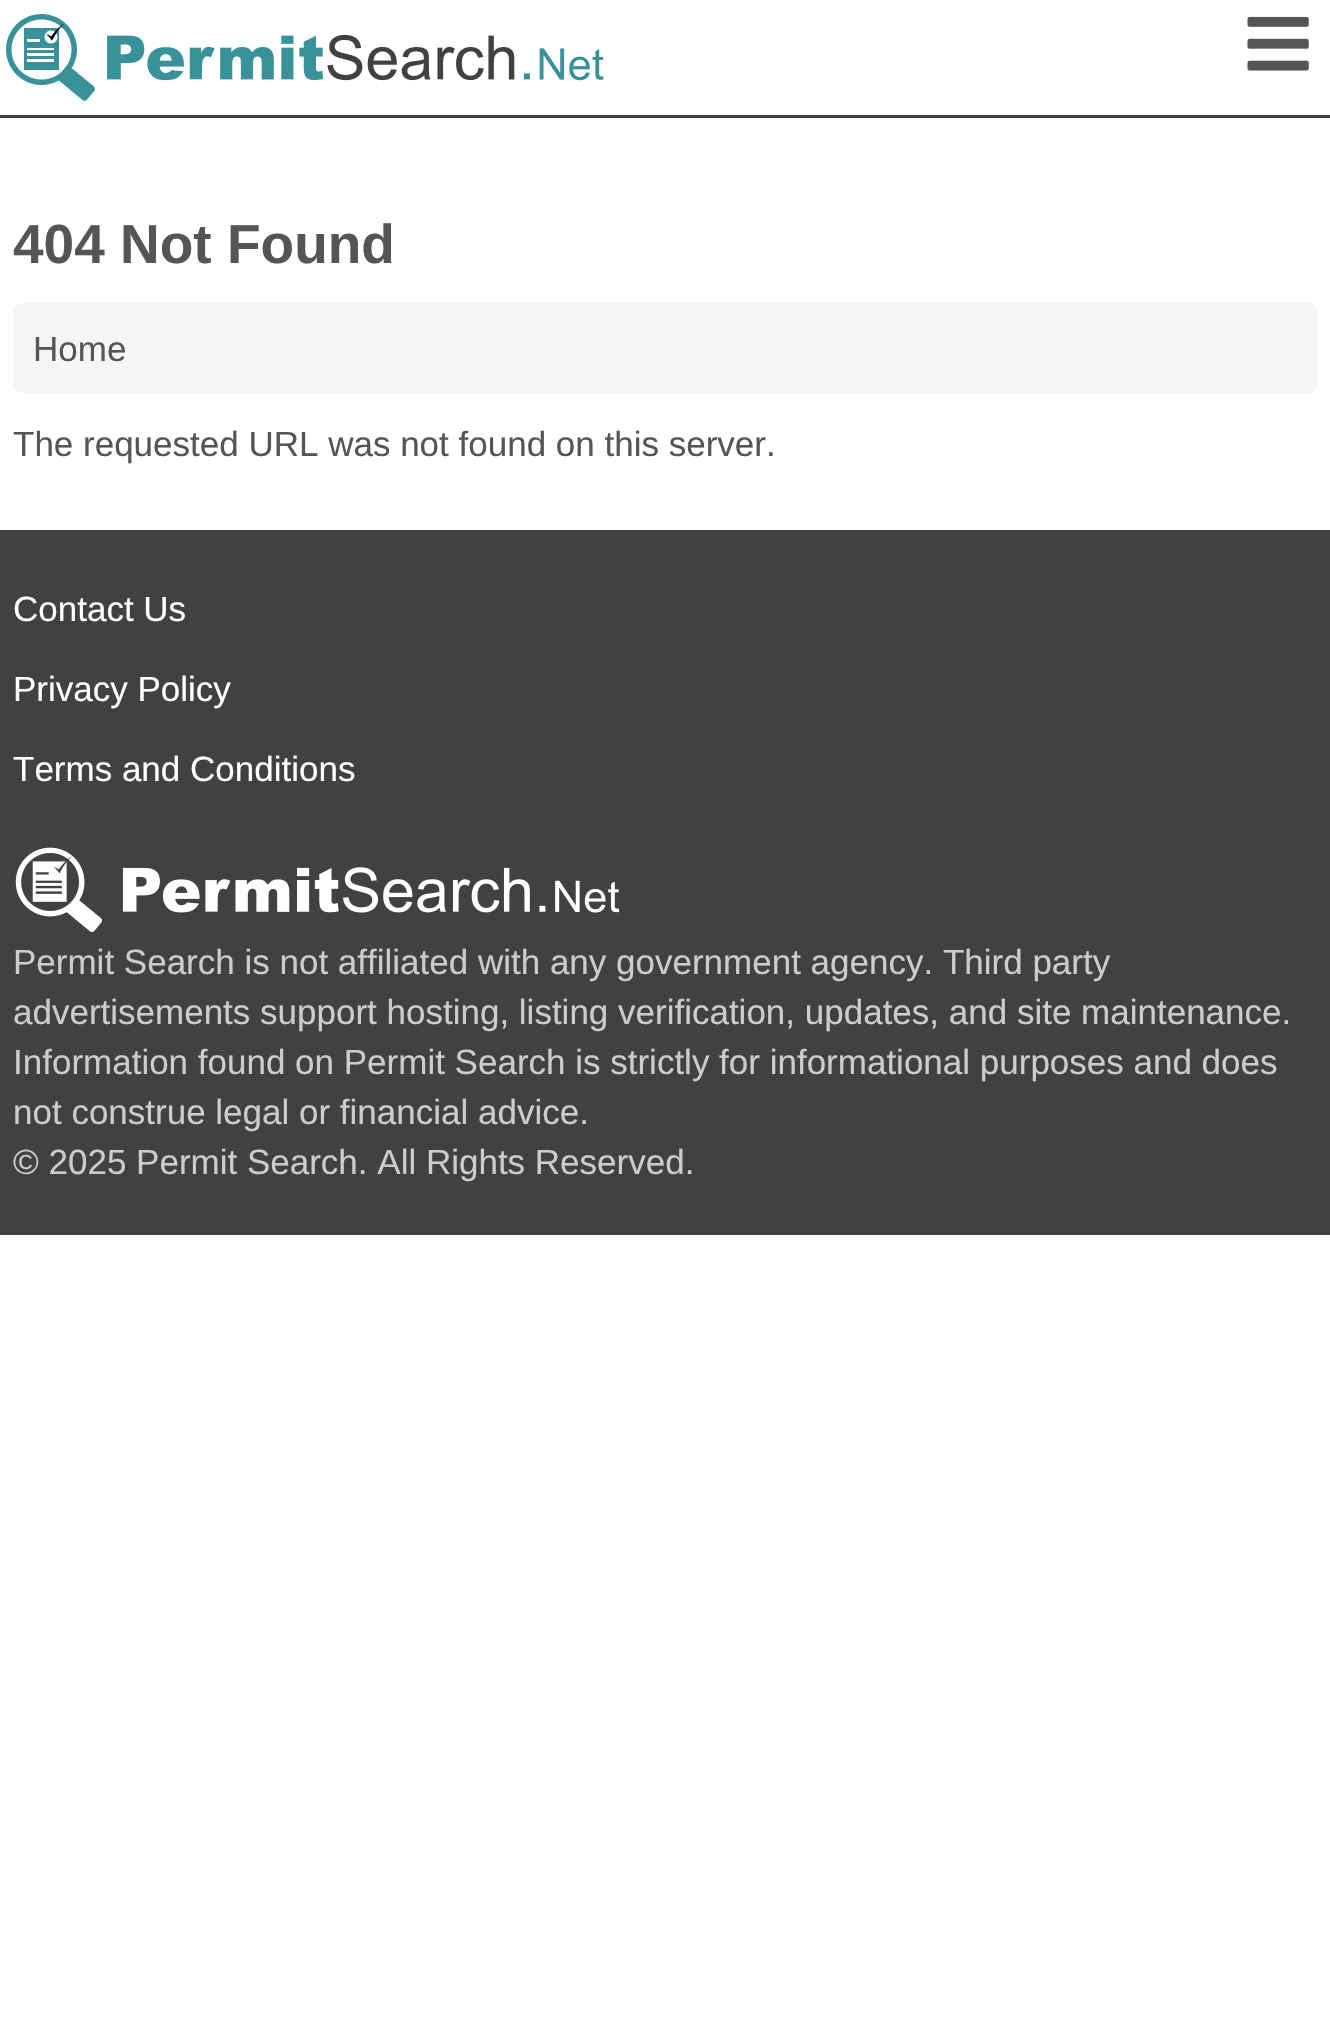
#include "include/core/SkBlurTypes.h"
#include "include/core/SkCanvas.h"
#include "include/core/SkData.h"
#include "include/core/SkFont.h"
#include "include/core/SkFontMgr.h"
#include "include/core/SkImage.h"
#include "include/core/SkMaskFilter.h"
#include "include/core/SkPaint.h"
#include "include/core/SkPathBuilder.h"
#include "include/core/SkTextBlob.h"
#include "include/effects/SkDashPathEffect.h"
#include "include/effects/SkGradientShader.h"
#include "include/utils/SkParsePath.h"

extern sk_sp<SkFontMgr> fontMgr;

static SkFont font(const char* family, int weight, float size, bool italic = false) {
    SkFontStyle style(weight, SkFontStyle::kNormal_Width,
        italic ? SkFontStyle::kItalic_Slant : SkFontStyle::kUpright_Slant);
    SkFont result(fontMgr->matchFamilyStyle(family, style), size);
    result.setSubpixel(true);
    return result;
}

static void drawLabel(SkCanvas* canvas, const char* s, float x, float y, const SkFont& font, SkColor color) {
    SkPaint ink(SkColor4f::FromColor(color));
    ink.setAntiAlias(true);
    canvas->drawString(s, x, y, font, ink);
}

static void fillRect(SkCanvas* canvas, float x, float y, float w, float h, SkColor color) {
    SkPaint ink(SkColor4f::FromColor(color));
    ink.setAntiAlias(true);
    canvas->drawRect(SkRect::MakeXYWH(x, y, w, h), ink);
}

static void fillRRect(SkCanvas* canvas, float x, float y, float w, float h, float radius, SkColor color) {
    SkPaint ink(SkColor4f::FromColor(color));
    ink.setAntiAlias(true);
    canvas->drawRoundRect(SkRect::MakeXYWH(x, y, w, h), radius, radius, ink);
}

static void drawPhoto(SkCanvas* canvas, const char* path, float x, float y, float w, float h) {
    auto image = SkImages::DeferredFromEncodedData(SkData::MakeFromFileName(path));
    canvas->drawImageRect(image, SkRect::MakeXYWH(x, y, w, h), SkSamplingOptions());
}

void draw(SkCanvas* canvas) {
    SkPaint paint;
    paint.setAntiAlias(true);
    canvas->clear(0xFFFFFFFF);
    fillRect(canvas, 0, 115, 1330, 3, 0xFF414142);
    drawPhoto(canvas, "assets/img1.png", 6, 14, 598, 87);
    drawPhoto(canvas, "assets/img2.png", 1247, 16, 62, 55);
    SkFont font1 = font("Liberation Sans", 700, 55);
    drawLabel(canvas, "404 Not Found", 13, 263, font1, 0xFF555555);
    fillRRect(canvas, 13, 303, 1305, 90, 10, 0xFFF5F5F5);
    SkFont font2 = font("Liberation Sans", 400, 35);
    drawLabel(canvas, "Home", 33, 361, font2, 0xFF555555);
    drawLabel(canvas, "The requested URL was not found on this server.", 13, 456, font2, 0xFF555555);
    fillRect(canvas, 0, 530, 1330, 705, 0xFF414142);
    drawLabel(canvas, "Contact Us", 13, 621, font2, 0xFFFFFFFF);
    drawLabel(canvas, "Privacy Policy", 13, 701, font2, 0xFFFFFFFF);
    drawLabel(canvas, "Terms and Conditions", 13, 781, font2, 0xFFFFFFFF);
    drawPhoto(canvas, "assets/img3.png", 15, 847, 605, 85);
    drawLabel(canvas, "Permit Search is not affiliated with any government agency. Third party", 13, 974, font2, 0xFFCCCCCC);
    drawLabel(canvas, "advertisements support hosting, listing verification, updates, and site maintenance.", 13, 1024, font2, 0xFFCCCCCC);
    drawLabel(canvas, "Information found on Permit Search is strictly for informational purposes and does", 13, 1074, font2, 0xFFCCCCCC);
    drawLabel(canvas, "not construe legal or financial advice.", 13, 1124, font2, 0xFFCCCCCC);
    drawLabel(canvas, "© 2025 Permit Search. All Rights Reserved.", 13, 1174, font2, 0xFFCCCCCC);
}
